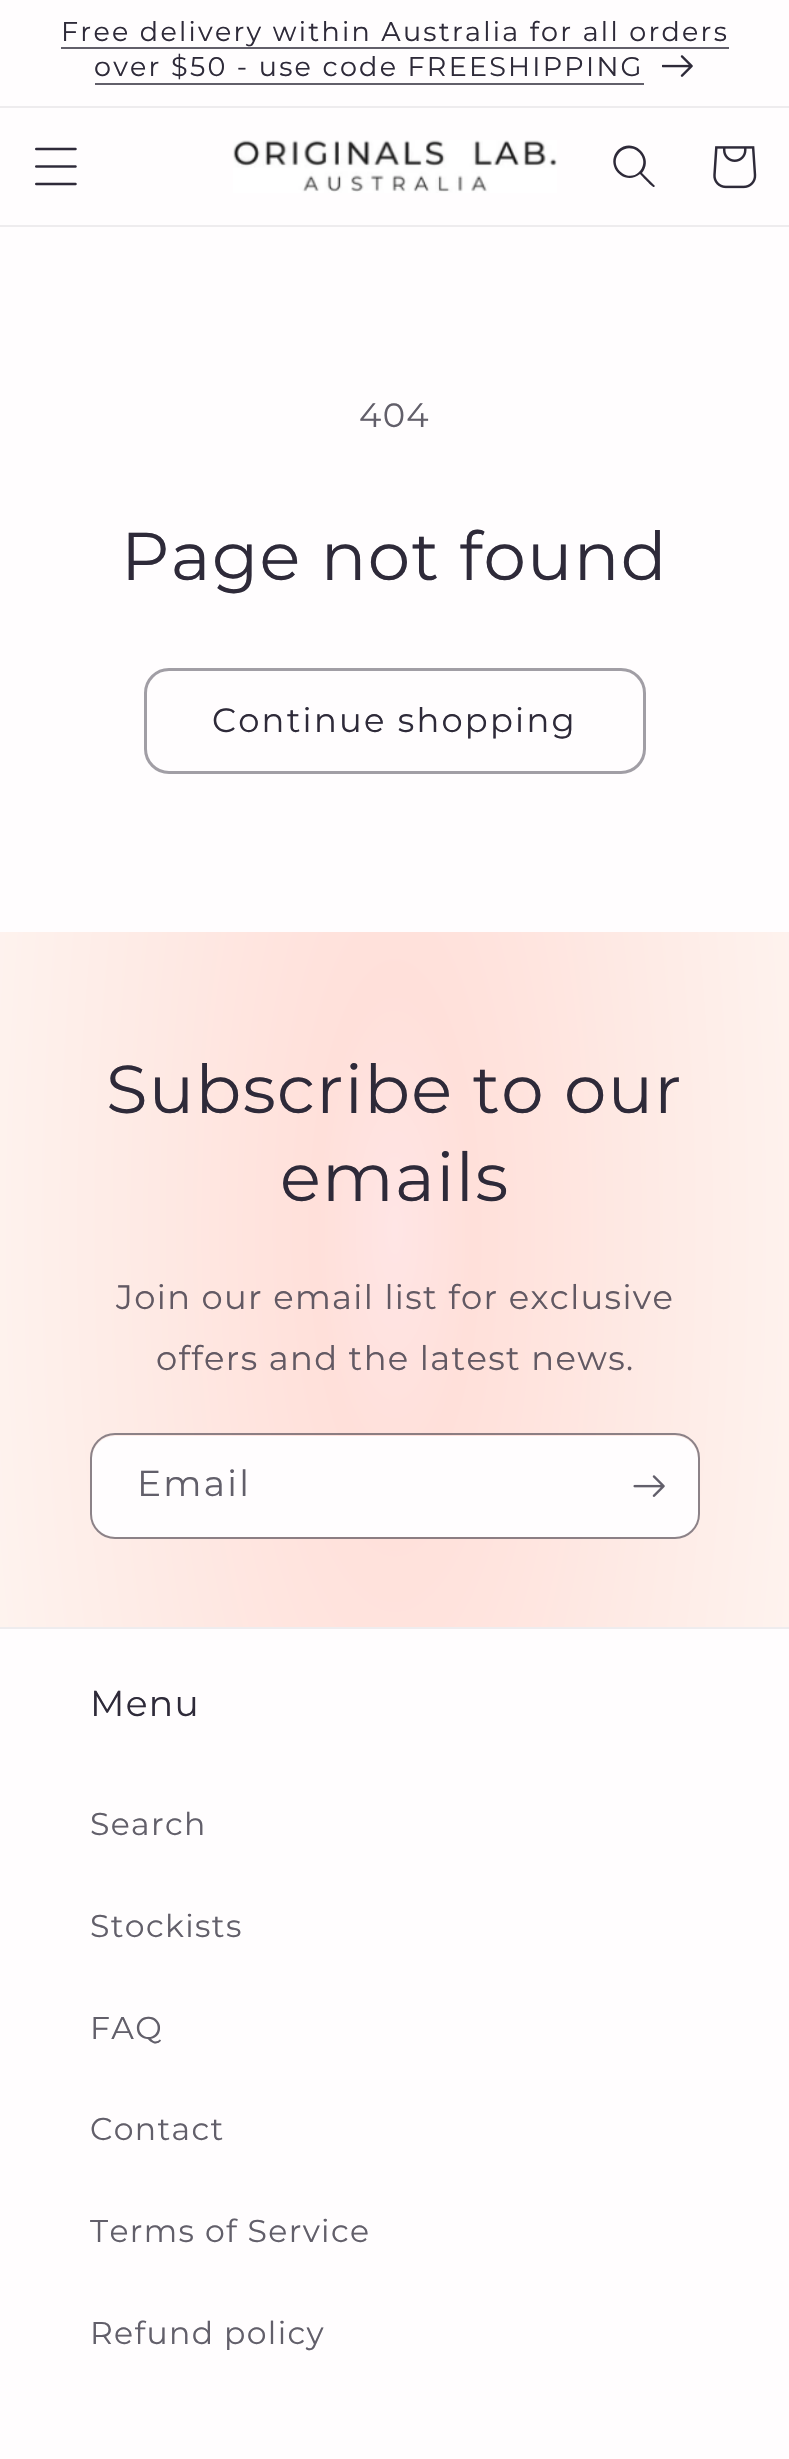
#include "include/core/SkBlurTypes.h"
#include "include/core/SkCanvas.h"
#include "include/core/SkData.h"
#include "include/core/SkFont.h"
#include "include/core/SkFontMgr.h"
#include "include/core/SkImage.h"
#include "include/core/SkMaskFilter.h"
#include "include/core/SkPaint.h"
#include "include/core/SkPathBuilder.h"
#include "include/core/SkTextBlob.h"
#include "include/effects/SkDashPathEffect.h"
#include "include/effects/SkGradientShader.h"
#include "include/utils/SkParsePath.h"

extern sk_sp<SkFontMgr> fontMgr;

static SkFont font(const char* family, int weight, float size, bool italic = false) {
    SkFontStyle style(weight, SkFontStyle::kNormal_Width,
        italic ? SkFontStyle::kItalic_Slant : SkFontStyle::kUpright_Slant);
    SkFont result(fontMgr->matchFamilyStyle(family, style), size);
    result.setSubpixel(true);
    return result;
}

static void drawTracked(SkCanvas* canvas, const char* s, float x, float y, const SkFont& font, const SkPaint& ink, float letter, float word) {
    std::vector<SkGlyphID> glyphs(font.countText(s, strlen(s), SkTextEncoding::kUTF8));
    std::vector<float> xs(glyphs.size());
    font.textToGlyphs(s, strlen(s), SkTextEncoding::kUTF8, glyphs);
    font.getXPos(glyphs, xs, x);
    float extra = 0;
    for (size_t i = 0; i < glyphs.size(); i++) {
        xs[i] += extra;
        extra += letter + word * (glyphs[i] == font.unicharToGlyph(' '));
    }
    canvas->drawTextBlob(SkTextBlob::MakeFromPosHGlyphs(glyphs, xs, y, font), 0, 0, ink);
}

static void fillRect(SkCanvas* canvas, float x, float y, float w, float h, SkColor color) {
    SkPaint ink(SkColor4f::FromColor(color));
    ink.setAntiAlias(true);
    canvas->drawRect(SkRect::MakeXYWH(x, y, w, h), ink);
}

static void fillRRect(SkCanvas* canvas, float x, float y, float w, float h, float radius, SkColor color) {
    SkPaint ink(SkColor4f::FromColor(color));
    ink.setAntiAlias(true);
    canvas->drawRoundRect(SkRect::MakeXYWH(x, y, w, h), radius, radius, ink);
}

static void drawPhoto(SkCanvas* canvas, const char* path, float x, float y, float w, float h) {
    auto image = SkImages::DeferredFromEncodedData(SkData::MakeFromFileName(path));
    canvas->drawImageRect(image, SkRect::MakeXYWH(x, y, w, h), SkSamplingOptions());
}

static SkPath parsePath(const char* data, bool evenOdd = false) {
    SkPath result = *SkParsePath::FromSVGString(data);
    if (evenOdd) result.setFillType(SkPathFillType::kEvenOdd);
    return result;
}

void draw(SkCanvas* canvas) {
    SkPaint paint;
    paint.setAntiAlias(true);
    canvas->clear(0xFFFFFDFE);
    fillRect(canvas, 0, 106, 789, 2, 0xFFEEECEE);
    SkFont font1 = font("Montserrat", 400, 27);
    paint.setColor(0xFF2E2A39);
    drawTracked(canvas, "Free delivery within Australia for all orders", 61, 41, font1, paint, 2.25f, 0);
    fillRect(canvas, 61, 47, 668, 2, 0xFF625F6A);
    drawTracked(canvas, "over $50 - use code FREESHIPPING", 94, 76, font1, paint, 2.25f, 0);
    fillRect(canvas, 95, 83, 549, 2, 0xFF625F6A);
    drawPhoto(canvas, "assets/img1.png", 662, 55, 31, 22);
    fillRect(canvas, 0, 225, 789, 2, 0xFFEEECEE);
    drawPhoto(canvas, "assets/img2.png", 35, 147, 42, 39);
    drawPhoto(canvas, "assets/img3.png", 233, 140, 324, 53);
    canvas->drawPath(parsePath("M639 172C627 184 607 165 620 152C633 140 652 159 639 172ZM640 174C624 187 604 165 618 150C633 136 655 157 642 173L655 186L654 187C653 188 642 176 640 174Z", true), paint);
    drawPhoto(canvas, "assets/img4.png", 713, 146, 44, 43);
    SkFont font2 = font("Montserrat", 400, 33.75f);
    paint.setColor(0xFF625F6A);
    drawTracked(canvas, "404", 359, 427, font2, paint, 1.35f, 0);
    SkFont font3 = font("Montserrat", 400, 67.5f);
    paint.setColor(0xFF2E2A39);
    drawTracked(canvas, "Page not found", 121, 580, font3, paint, 1.35f, 0);
    paint.setStroke(true);
    paint.setStrokeWidth(3);
    paint.setColor(0xFFA19EA5);
    canvas->drawRoundRect(SkRect::MakeXYWH(145.5f, 669.5f, 499, 103), 23.5f, 23.5f, paint);
    paint.setStroke(false);
    paint.setColor(0xFF2E2A39);
    drawTracked(canvas, "Continue shopping", 212, 732, font2, paint, 2.25f, 0);
    {
        const SkColor colors[] = {0xFFFFE5E5, 0xFFFFE0DA, 0xFFFDFBF7};
        const float stops[] = {0, 0.14f, 1};
        SkMatrix m = SkMatrix::Translate(395, 1230).preScale(558, 1739);
        paint.setShader(SkGradientShader::MakeRadial({0, 0}, 1, colors, stops, 3, SkTileMode::kClamp, 0, &m));
        paint.setAlpha(255);
    }
    canvas->drawRect(SkRect::MakeXYWH(0, 932, 789, 695), paint);
    paint.setShader(nullptr);
    paint.setColor(0xFF2E2A39);
    drawTracked(canvas, "Subscribe to our", 106, 1113, font3, paint, 1.35f, 0);
    drawTracked(canvas, "emails", 280, 1201, font3, paint, 1.35f, 0);
    paint.setColor(0xFF625963);
    drawTracked(canvas, "Join our email list for exclusive", 116, 1309, font2, paint, 1.35f, 0);
    drawTracked(canvas, "offers and the latest news.", 156, 1370, font2, paint, 1.35f, 0);
    fillRRect(canvas, 92, 1436, 606, 101, 23, 0xFFFFFDFE);
    paint.setStroke(true);
    paint.setStrokeWidth(2);
    paint.setColor(0x8C2E2A39);
    canvas->drawRoundRect(SkRect::MakeXYWH(91, 1434, 608, 104), 24, 24, paint);
    SkFont font4 = font("Montserrat", 400, 36);
    paint.setStroke(false);
    paint.setColor(0xFF625F6A);
    drawTracked(canvas, "Email", 137, 1496, font4, paint, 2.25f, 0);
    drawPhoto(canvas, "assets/img5.png", 633, 1475, 32, 22);
    fillRect(canvas, 0, 1627, 789, 2, 0xFFEEECEE);
    paint.setColor(0xFF2E2A39);
    drawTracked(canvas, "Menu", 90, 1716, font4, paint, 1.35f, 0);
    SkFont font5 = font("Montserrat", 400, 31.5f);
    paint.setColor(0xFF625F6A);
    drawTracked(canvas, "Search", 90, 1835, font5, paint, 1.35f, 0);
    drawTracked(canvas, "Stockists", 90, 1937, font5, paint, 1.35f, 0);
    drawTracked(canvas, "FAQ", 90, 2039, font5, paint, 1.35f, 0);
    drawTracked(canvas, "Contact", 90, 2140, font5, paint, 1.35f, 0);
    drawTracked(canvas, "Terms of Service", 90, 2242, font5, paint, 1.35f, 0);
    drawTracked(canvas, "Refund policy", 90, 2344, font5, paint, 1.35f, 0);
}
